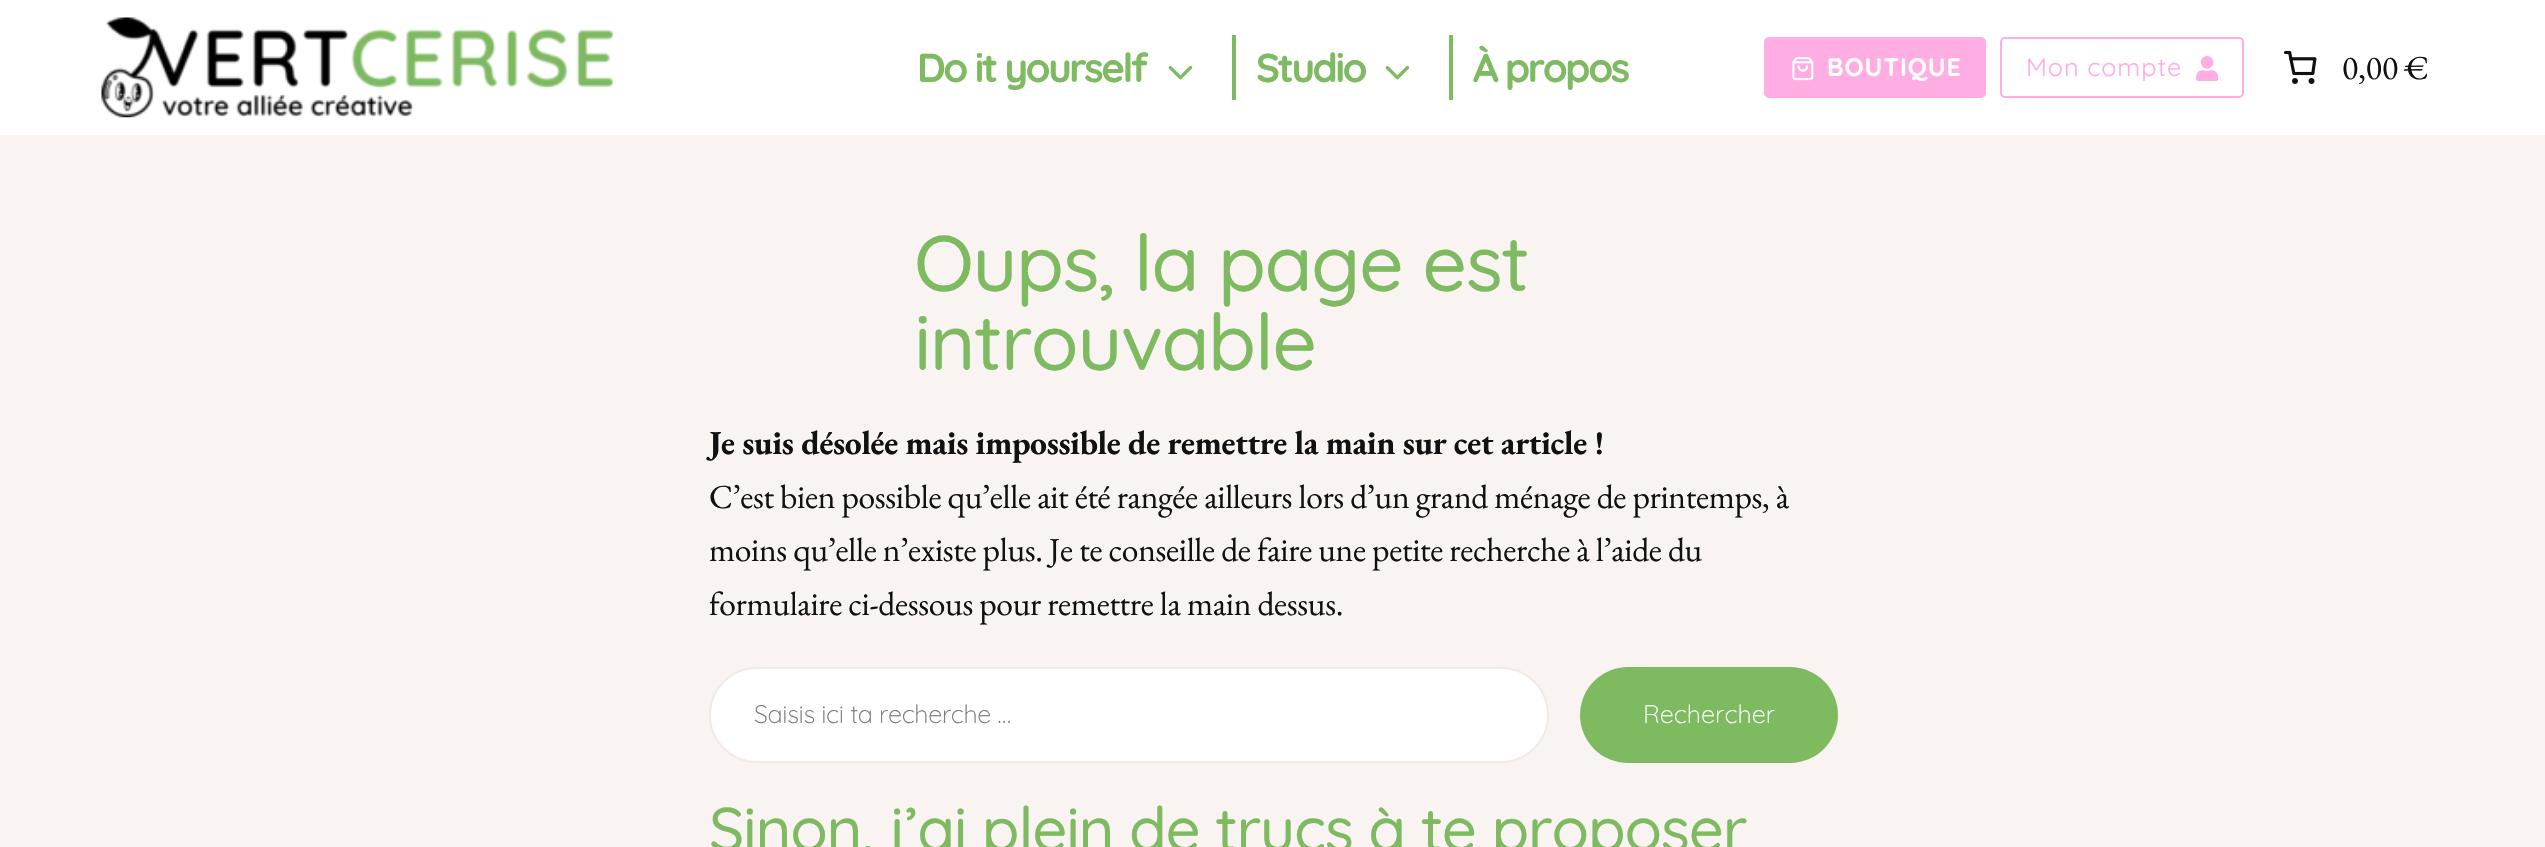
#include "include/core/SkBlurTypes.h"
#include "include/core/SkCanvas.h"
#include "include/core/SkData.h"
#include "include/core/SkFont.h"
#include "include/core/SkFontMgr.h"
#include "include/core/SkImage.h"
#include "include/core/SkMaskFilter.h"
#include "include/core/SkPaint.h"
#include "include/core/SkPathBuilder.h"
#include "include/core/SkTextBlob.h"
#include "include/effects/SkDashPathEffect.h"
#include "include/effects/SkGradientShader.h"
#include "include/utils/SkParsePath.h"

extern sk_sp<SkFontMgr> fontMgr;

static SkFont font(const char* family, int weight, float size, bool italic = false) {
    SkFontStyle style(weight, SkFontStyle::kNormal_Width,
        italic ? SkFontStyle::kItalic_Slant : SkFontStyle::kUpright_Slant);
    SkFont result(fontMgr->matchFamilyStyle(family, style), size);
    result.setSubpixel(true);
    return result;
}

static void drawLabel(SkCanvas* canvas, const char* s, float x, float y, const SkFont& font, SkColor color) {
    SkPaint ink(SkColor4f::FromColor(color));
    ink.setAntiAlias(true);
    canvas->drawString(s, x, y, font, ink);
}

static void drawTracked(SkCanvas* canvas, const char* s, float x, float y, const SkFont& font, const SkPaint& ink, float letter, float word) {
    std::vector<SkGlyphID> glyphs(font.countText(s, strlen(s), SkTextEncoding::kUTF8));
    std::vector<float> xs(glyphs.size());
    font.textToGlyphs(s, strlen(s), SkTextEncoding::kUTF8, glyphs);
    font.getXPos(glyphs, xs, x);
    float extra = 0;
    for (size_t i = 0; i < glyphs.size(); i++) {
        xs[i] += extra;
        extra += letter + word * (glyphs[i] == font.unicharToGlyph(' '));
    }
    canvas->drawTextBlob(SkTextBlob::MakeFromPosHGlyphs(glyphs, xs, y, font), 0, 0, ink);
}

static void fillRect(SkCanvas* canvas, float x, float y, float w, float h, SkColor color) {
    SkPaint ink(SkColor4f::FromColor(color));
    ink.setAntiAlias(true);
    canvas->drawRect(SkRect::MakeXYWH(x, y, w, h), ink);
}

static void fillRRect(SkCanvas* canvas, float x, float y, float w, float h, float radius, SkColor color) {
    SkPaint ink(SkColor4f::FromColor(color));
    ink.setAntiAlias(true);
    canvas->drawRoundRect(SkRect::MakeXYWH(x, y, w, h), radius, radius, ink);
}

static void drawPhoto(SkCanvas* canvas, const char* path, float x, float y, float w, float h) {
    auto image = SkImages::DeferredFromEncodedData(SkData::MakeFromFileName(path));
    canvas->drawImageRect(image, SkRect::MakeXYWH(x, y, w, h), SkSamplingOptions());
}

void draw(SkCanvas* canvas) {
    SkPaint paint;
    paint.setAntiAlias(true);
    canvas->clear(0xFFF9F3F2);
    fillRect(canvas, 0, 0, 2545, 135, 0xFFFFFFFF);
    drawPhoto(canvas, "assets/img1.png", 101, 17, 512, 101);
    fillRect(canvas, 1232, 35, 4, 65, 0xFF7DBA60);
    SkFont font1 = font("Quicksand", 700, 40.25f);
    paint.setColor(0xFF7DBA60);
    drawTracked(canvas, "Do it yourself", 917, 82, font1, paint, -2.5f, 0);
    drawPhoto(canvas, "assets/img2.png", 1168, 66, 25, 14);
    fillRect(canvas, 1449, 35, 4, 65, 0xFF7DBA60);
    drawTracked(canvas, "Studio", 1256, 82, font1, paint, -2.5f, 0);
    drawPhoto(canvas, "assets/img2.png", 1385, 66, 25, 14);
    drawTracked(canvas, "À propos", 1473, 82, font1, paint, -2.5f, 0);
    fillRRect(canvas, 1764, 37, 222, 61, 5, 0xFFFFADE3);
    drawPhoto(canvas, "assets/img3.png", 1792, 57, 22, 24);
    SkFont font2 = font("Quicksand", 700, 25.25f);
    paint.setColor(0xFFFFFFFF);
    drawTracked(canvas, "BOUTIQUE", 1827, 76, font2, paint, 0.9f, 0);
    paint.setStroke(true);
    paint.setStrokeWidth(2);
    paint.setColor(0xFFFFADE3);
    canvas->drawRoundRect(SkRect::MakeXYWH(2001, 38, 242, 59), 4, 4, paint);
    SkFont font3 = font("Quicksand", 400, 25.25f);
    paint.setStroke(false);
    drawTracked(canvas, "Mon compte", 2026, 76, font3, paint, 0.9f, 0);
    drawPhoto(canvas, "assets/img4.png", 2196, 56, 23, 25);
    drawPhoto(canvas, "assets/img5.png", 2283, 50, 34, 34);
    SkFont font4 = font("EB Garamond", 400, 33.6f);
    drawLabel(canvas, "0,00 €", 2342, 79, font4, 0xFF111111);
    SkFont font5 = font("Quicksand", 500, 78.5f);
    paint.setColor(0xFF7DBA60);
    drawTracked(canvas, "Oups, la page est", 914, 291, font5, paint, -1.6f, 0);
    drawTracked(canvas, "introuvable", 914, 370, font5, paint, -1.6f, 0);
    SkFont font6 = font("EB Garamond", 700, 33.6f);
    paint.setColor(0xFF111111);
    drawTracked(canvas, "Je suis désolée mais impossible de remettre la main sur cet article !", 709, 454, font6, paint, -0.35f, 0);
    drawTracked(canvas, "C’est bien possible qu’elle ait été rangée ailleurs lors d’un grand ménage de printemps, à", 709, 508, font4, paint, -0.35f, 0);
    drawTracked(canvas, "moins qu’elle n’existe plus. Je te conseille de faire une petite recherche à l’aide du", 709, 561, font4, paint, -0.35f, 0);
    drawTracked(canvas, "formulaire ci-dessous pour remettre la main dessus.", 709, 615, font4, paint, -0.35f, 0);
    paint.setColor(0xFFFFFFFF);
    canvas->drawRoundRect(SkRect::MakeXYWH(710, 668, 838, 94), 47, 47, paint);
    paint.setStroke(true);
    paint.setColor(0xFFF2EAE6);
    canvas->drawRoundRect(SkRect::MakeXYWH(710, 668, 838, 94), 47, 47, paint);
    SkFont font7 = font("Quicksand", 300, 25.25f);
    paint.setStroke(false);
    paint.setColor(0xFF757575);
    drawTracked(canvas, "Saisis ici ta recherche …", 754, 723, font7, paint, -0.35f, 0);
    fillRRect(canvas, 1580, 667, 258, 96, 48, 0xFF7DBA60);
    drawLabel(canvas, "Rechercher", 1643, 723, font7, 0xFFFFFFFF);
    SkFont font8 = font("Quicksand", 500, 61.6f);
    paint.setColor(0xFF7DBA60);
    drawTracked(canvas, "Sinon, j’ai plein de trucs à te proposer", 709, 851, font8, paint, -1.25f, 0);
}
